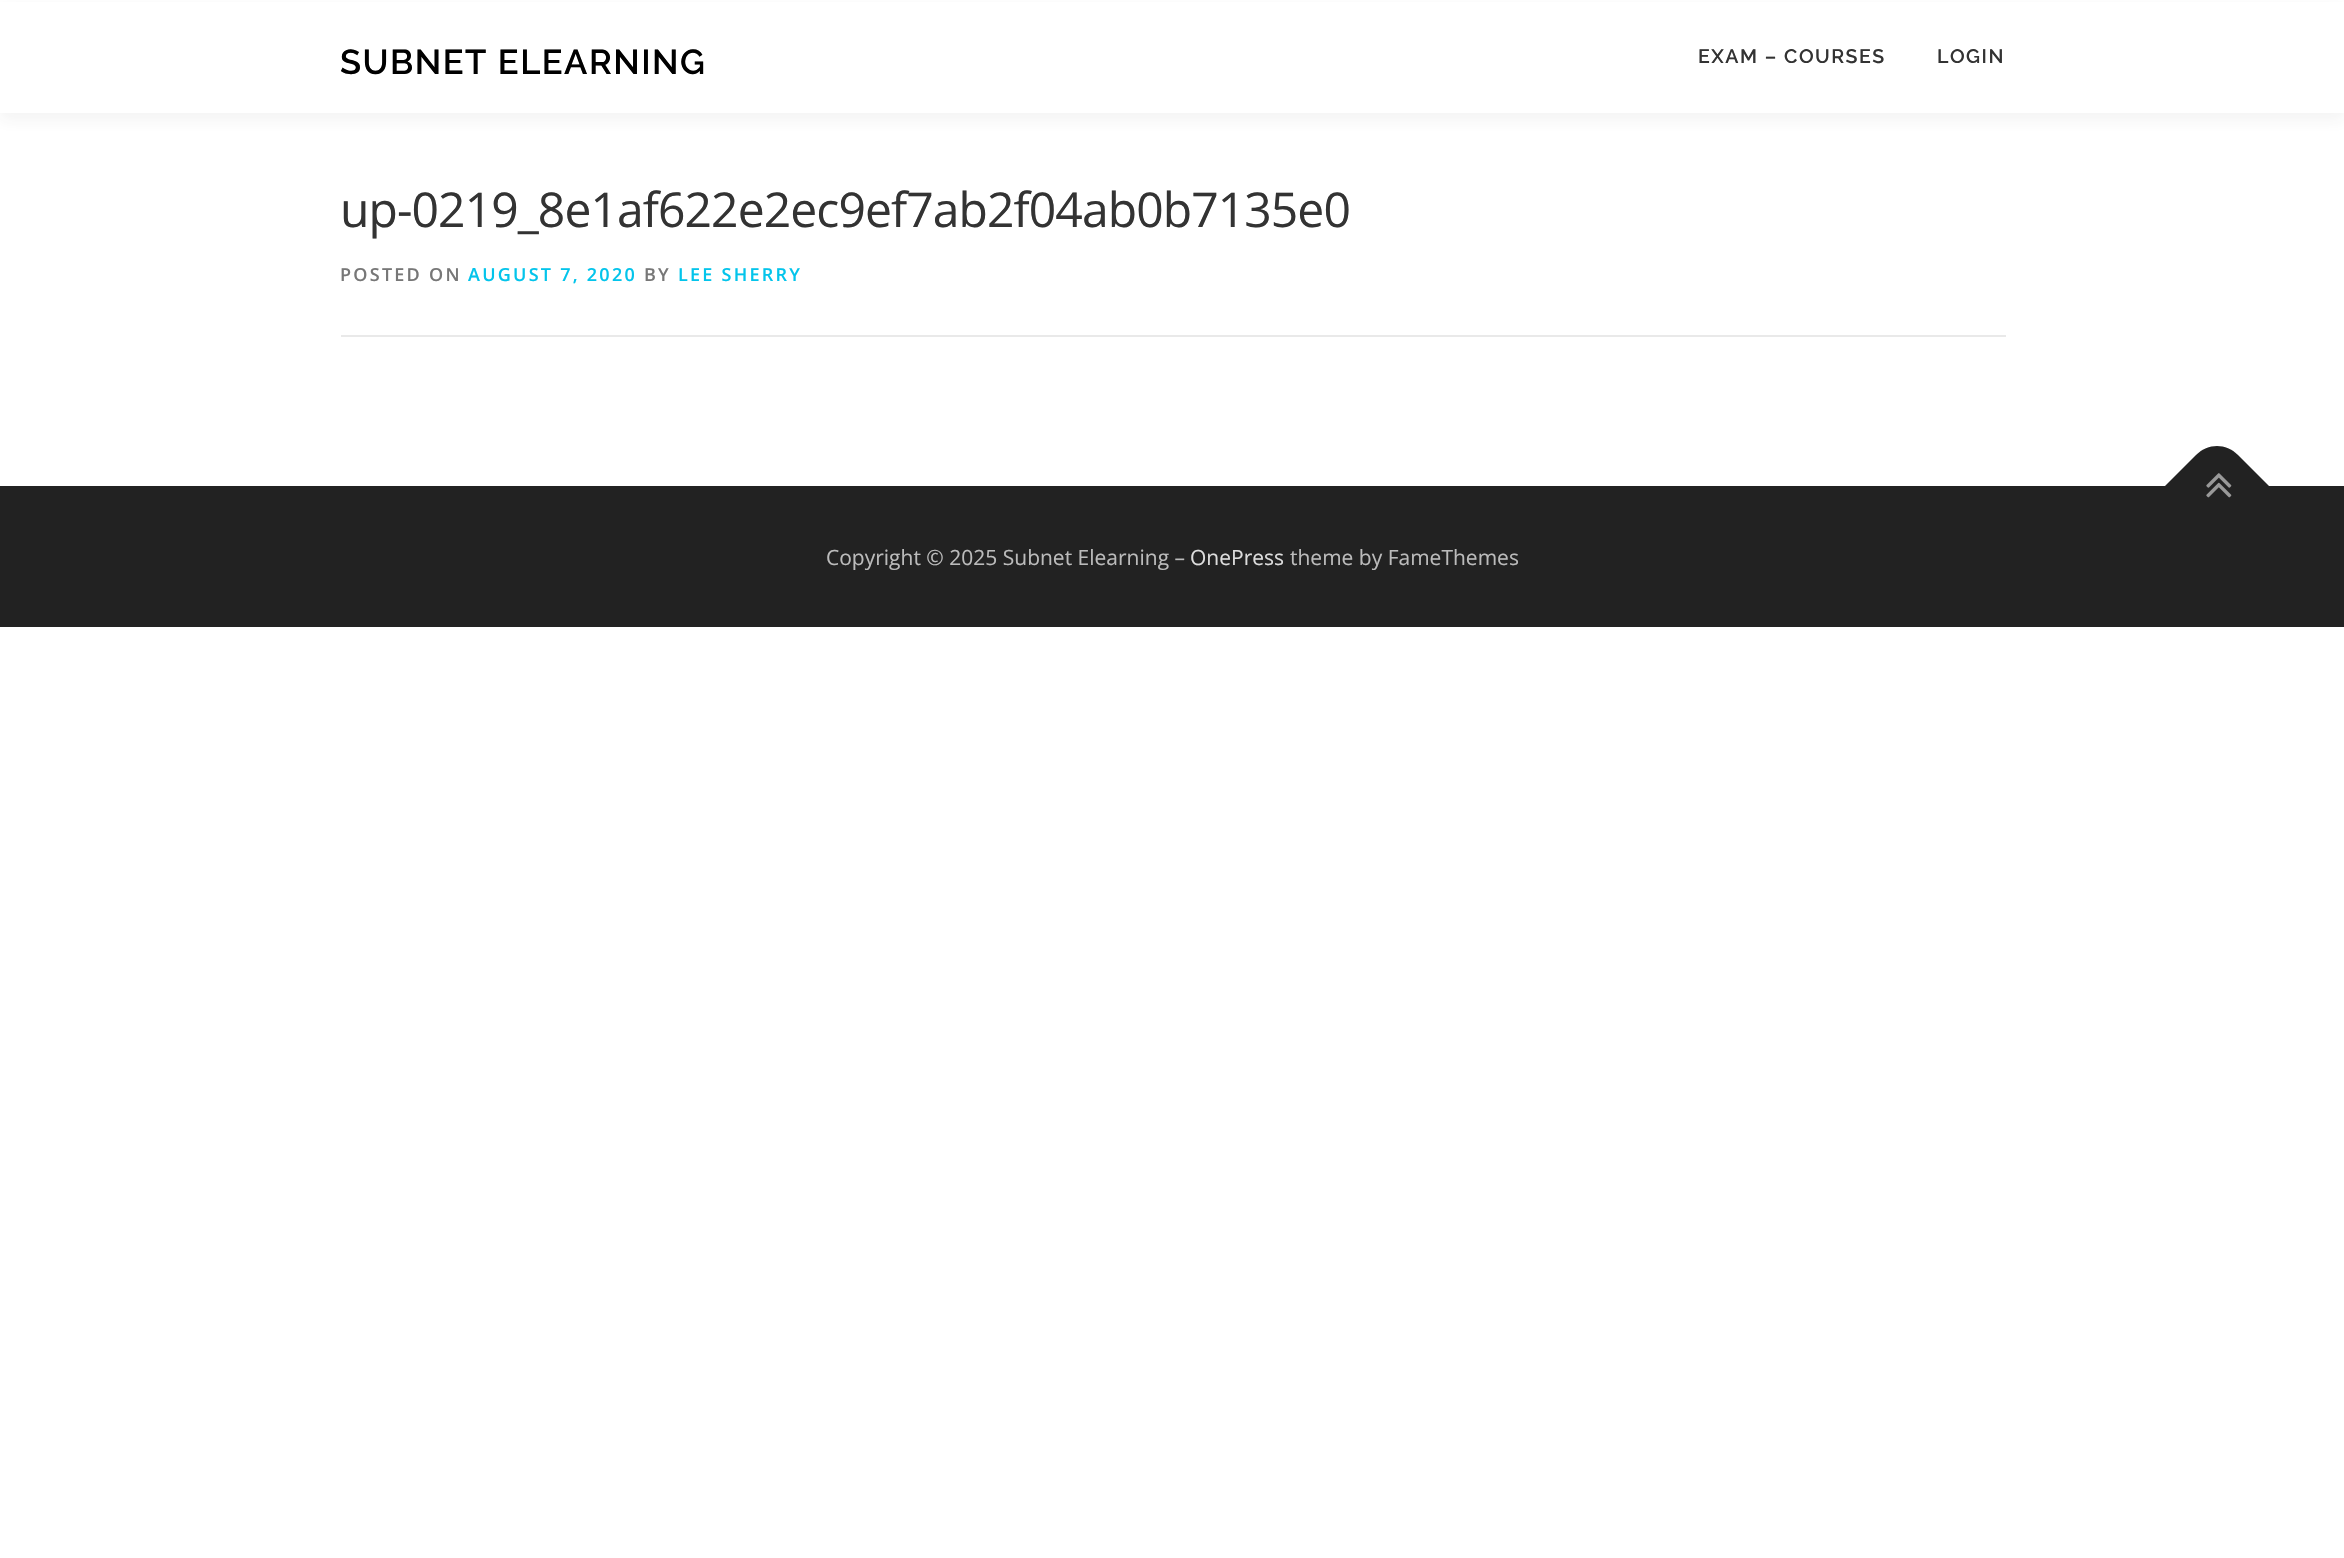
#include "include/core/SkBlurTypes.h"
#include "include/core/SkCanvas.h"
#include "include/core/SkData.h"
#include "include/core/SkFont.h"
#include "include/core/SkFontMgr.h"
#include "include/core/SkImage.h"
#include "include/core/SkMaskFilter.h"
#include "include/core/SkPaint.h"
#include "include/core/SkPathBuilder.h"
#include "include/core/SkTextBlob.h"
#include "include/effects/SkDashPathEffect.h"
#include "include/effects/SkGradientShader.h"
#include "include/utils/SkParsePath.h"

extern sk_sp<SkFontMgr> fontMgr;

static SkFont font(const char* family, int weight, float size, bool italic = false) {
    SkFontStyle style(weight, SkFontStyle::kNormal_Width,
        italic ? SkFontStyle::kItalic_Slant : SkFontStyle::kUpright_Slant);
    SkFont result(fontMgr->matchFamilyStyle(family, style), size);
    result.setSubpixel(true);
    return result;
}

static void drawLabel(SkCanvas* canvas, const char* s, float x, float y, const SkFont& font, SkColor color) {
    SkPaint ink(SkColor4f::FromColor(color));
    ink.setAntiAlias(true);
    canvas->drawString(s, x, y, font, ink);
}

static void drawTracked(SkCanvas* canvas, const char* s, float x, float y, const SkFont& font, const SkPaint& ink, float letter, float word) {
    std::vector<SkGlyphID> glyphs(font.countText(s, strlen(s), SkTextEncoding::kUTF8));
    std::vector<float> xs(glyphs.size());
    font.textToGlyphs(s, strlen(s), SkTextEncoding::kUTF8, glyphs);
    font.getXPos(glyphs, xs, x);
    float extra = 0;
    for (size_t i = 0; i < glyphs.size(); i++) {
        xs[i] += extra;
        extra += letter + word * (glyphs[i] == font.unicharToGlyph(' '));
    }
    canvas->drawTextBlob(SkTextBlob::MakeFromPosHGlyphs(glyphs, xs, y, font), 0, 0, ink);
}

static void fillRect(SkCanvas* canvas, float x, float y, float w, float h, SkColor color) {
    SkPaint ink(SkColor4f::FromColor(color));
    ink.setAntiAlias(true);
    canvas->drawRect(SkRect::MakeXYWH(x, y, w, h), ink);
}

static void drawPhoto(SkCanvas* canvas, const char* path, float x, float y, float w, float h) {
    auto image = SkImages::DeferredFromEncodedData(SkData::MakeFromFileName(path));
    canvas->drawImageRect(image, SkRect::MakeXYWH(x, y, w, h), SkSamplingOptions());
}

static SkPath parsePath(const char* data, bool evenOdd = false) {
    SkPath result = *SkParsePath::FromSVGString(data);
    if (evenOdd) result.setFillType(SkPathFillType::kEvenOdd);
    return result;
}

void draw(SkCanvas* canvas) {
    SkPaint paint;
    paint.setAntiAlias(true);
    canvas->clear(0xFFFFFFFF);
    paint.setColor(0x0F323232);
    paint.setMaskFilter(SkMaskFilter::MakeBlur(kNormal_SkBlurStyle, 7.5f));
    canvas->drawRect(SkRect::MakeXYWH(0, 8, 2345, 112), paint);
    paint.setMaskFilter(nullptr);
    fillRect(canvas, 0, 2, 2344, 111, 0xFFFFFFFF);
    SkFont font1 = font("Raleway", 600, 34.5f);
    paint.setColor(0xFF000000);
    drawTracked(canvas, "SUBNET ELEARNING", 340, 74, font1, paint, 1.5f, 0);
    SkFont font2 = font("Raleway", 600, 19.5f);
    paint.setColor(0xFF333333);
    drawTracked(canvas, "EXAM – COURSES", 1698, 63, font2, paint, 1.5f, 0);
    drawTracked(canvas, "LOGIN", 1937, 63, font2, paint, 1.5f, 0);
    SkFont font3 = font("Open Sans", 400, 48);
    drawTracked(canvas, "up-0219_8e1af622e2ec9ef7ab2f04ab0b7135e0", 340, 227, font3, paint, -0.9f, 0);
    fillRect(canvas, 341, 335, 1665, 2, 0xFFE9E9E9);
    SkFont font4 = font("Open Sans", 600, 18);
    paint.setColor(0xFF777777);
    drawTracked(canvas, "POSTED ON", 340, 281, font4, paint, 2.25f, 0);
    paint.setColor(0xFF03C4EB);
    drawTracked(canvas, "AUGUST 7, 2020", 468, 281, font4, paint, 2.25f, 0);
    paint.setColor(0xFF777777);
    drawTracked(canvas, "BY", 644, 281, font4, paint, 2.25f, 0);
    paint.setColor(0xFF03C4EB);
    drawTracked(canvas, "LEE SHERRY", 678, 281, font4, paint, 2.25f, 0);
    fillRect(canvas, 0, 486, 2344, 141, 0xFF222222);
    paint.setColor(0xFF222222);
    canvas->drawPath(parsePath("M2164 487L2196 455C2208 443 2226 443 2238 455L2270 487L2217 540Z"), paint);
    drawPhoto(canvas, "assets/img1.png", 2206, 473, 26, 25);
    SkFont font5 = font("Open Sans", 400, 21);
    drawLabel(canvas, "Copyright © 2025 Subnet Elearning –", 826, 565, font5, 0xFFBBBBBB);
    drawLabel(canvas, "OnePress", 1190, 565, font5, 0xFFDDDDDD);
    drawLabel(canvas, "theme by FameThemes", 1290, 565, font5, 0xFFBBBBBB);
}
